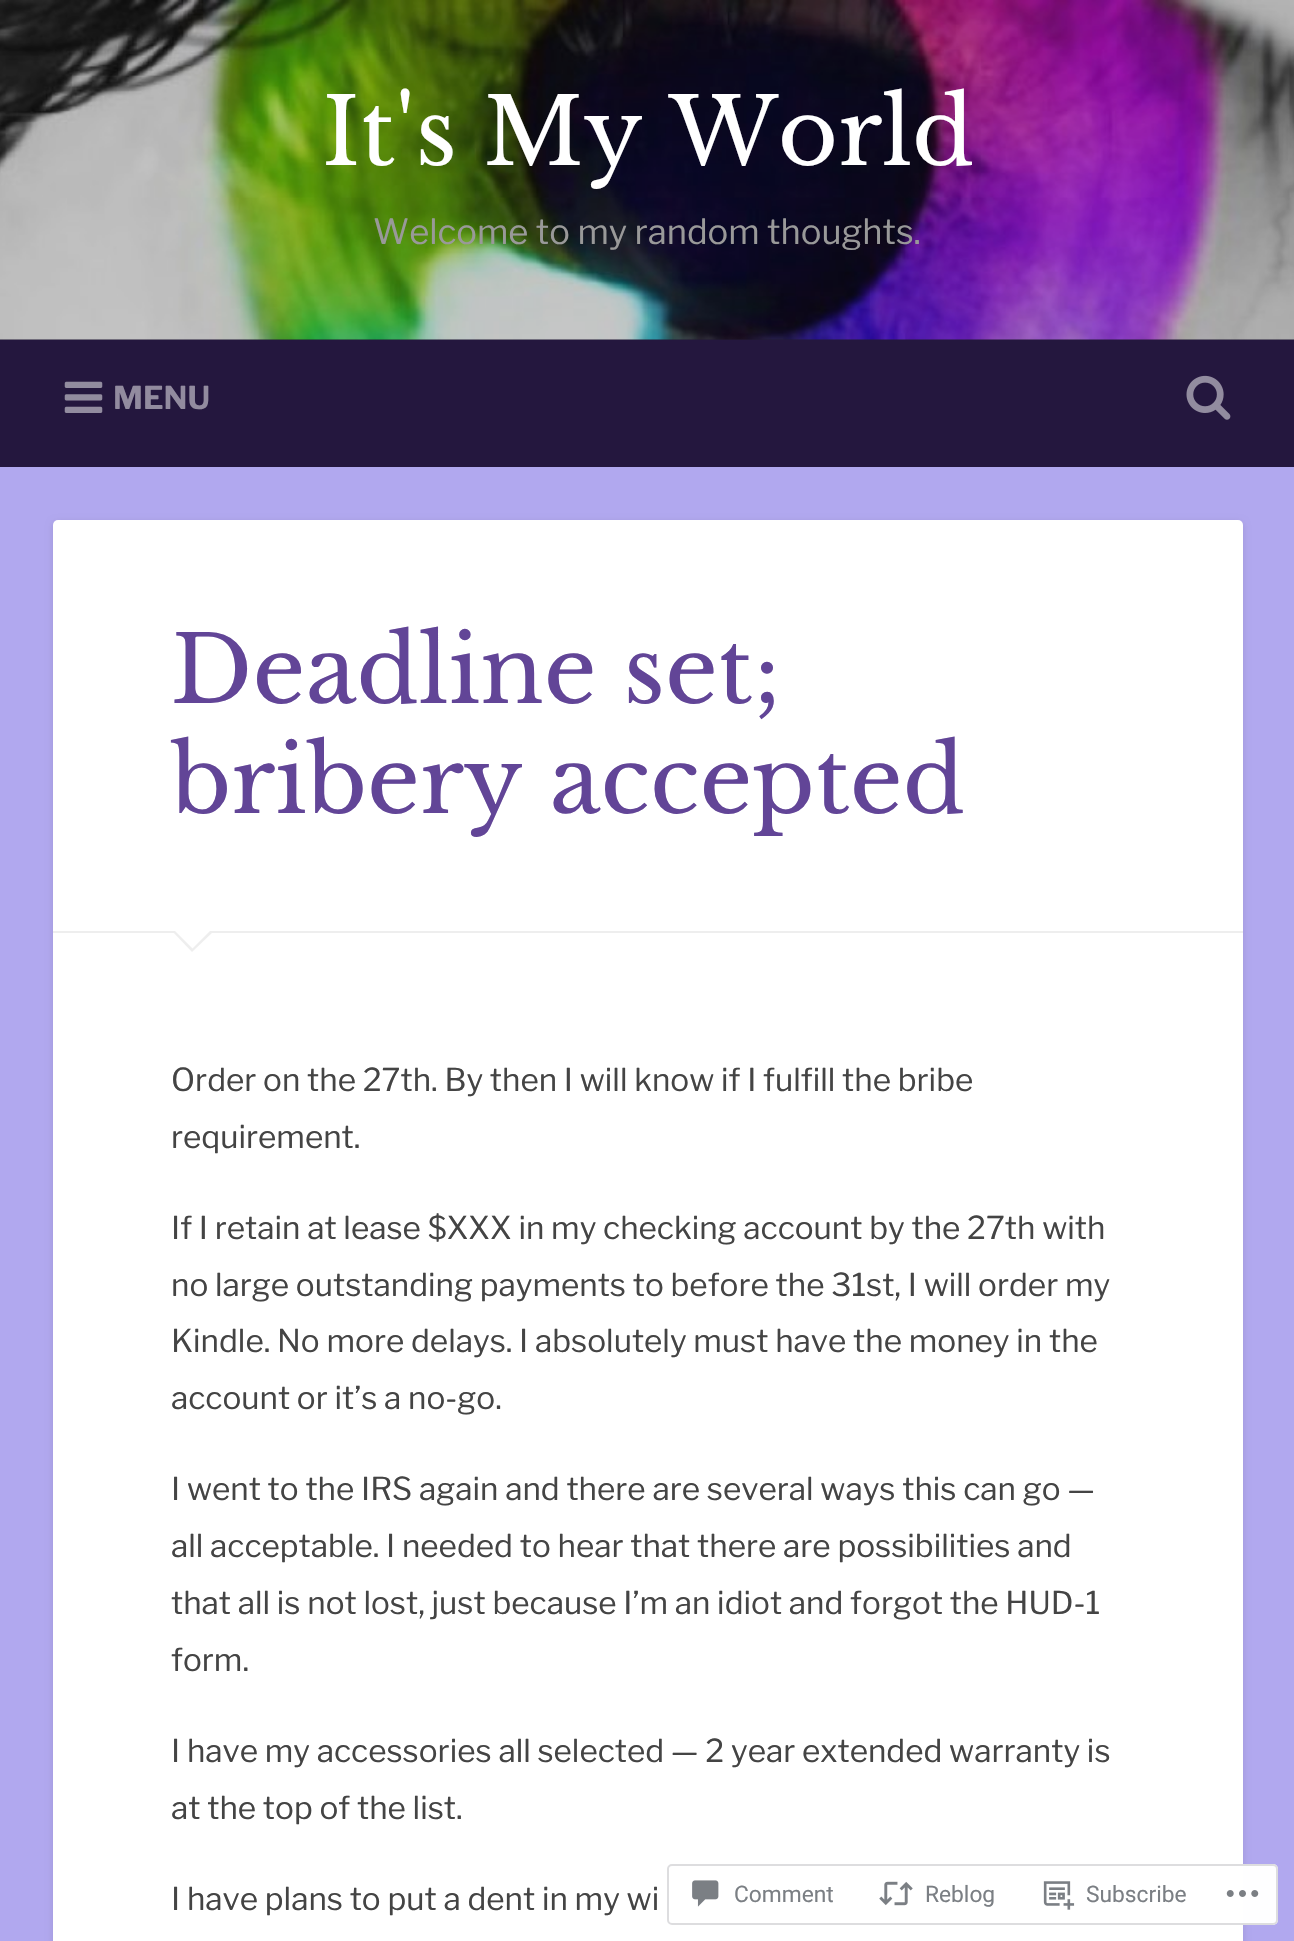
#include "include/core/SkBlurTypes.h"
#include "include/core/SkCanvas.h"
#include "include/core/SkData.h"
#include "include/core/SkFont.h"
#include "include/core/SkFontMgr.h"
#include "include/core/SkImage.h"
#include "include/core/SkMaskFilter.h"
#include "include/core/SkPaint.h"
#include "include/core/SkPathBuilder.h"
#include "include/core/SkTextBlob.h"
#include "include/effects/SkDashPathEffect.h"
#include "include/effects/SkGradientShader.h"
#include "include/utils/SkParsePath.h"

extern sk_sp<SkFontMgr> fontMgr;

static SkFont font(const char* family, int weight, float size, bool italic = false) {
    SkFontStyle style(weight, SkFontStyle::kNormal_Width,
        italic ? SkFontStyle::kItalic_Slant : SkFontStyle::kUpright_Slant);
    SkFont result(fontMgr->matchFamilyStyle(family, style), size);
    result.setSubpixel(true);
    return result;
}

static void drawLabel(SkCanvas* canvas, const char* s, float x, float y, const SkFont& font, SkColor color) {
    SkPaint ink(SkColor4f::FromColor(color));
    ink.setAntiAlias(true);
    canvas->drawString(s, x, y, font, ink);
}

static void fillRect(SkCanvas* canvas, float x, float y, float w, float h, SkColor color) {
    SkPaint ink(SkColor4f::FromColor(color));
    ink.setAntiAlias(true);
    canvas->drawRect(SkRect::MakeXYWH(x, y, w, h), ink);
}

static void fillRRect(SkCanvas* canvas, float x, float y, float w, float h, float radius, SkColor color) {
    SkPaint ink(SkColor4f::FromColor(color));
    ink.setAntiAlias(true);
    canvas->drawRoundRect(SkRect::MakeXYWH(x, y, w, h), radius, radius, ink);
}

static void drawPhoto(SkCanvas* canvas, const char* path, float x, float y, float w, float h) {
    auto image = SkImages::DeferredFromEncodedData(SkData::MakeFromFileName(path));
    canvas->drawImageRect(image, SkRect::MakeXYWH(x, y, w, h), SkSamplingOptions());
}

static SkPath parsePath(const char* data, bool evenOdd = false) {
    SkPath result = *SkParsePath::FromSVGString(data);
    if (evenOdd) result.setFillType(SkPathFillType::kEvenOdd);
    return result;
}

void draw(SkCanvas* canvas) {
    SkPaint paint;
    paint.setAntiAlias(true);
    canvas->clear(0xFFB1A8EF);
    fillRect(canvas, 0, 339, 1294, 1, 0xFF221936);
    drawPhoto(canvas, "assets/img1.png", 0, 0, 1294, 340);
    SkFont font1 = font("Libre Baskerville", 400, 92.25f);
    drawLabel(canvas, "It's My World", 322, 165, font1, 0xFFFFFFFF);
    SkFont font2 = font("Libre Franklin", 400, 34.6f);
    drawLabel(canvas, "Welcome to my random thoughts.", 373, 244, font2, 0xFF999999);
    fillRect(canvas, 0, 340, 1294, 127, 0xFF24173E);
    drawPhoto(canvas, "assets/img2.png", 64, 381, 39, 32);
    SkFont font3 = font("Libre Franklin", 700, 31.5f);
    drawLabel(canvas, "MENU", 113, 409, font3, 0xFF928B9F);
    drawPhoto(canvas, "assets/img3.png", 1186, 375, 45, 45);
    paint.setColor(0x1A000000);
    paint.setMaskFilter(SkMaskFilter::MakeBlur(kNormal_SkBlurStyle, 3.5f));
    canvas->drawRoundRect(SkRect::MakeXYWH(53, 522, 1190, 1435), 5, 5, paint);
    paint.setMaskFilter(nullptr);
    fillRRect(canvas, 53, 520, 1190, 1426, 5, 0xFFFFFFFF);
    fillRect(canvas, 53, 931, 1190, 2, 0xFFEEEEEE);
    drawLabel(canvas, "Deadline set;", 171, 703, font1, 0xFF624597);
    drawLabel(canvas, "bribery accepted", 171, 813, font1, 0xFF624597);
    paint.setColor(0xFFEEEEEE);
    canvas->drawPath(parsePath("M172 931H214L192 952Z"), paint);
    paint.setColor(0xFFFFFFFF);
    canvas->drawPath(parsePath("M173 929H212L192.5 948.5Z"), paint);
    SkFont font4 = font("Libre Franklin", 400, 31.5f);
    drawLabel(canvas, "Order on the 27th. By then I will know if I fulfill the bribe", 171, 1091, font4, 0xFF444444);
    drawLabel(canvas, "requirement.", 171, 1148, font4, 0xFF444444);
    drawLabel(canvas, "If I retain at lease $XXX in my checking account by the 27th with", 171, 1239, font4, 0xFF444444);
    drawLabel(canvas, "no large outstanding payments to before the 31st, I will order my", 171, 1296, font4, 0xFF444444);
    drawLabel(canvas, "Kindle. No more delays. I absolutely must have the money in the", 171, 1352, font4, 0xFF444444);
    drawLabel(canvas, "account or it’s a no-go.", 171, 1409, font4, 0xFF444444);
    drawLabel(canvas, "I went to the IRS again and there are several ways this can go —", 171, 1500, font4, 0xFF444444);
    drawLabel(canvas, "all acceptable. I needed to hear that there are possibilities and", 171, 1557, font4, 0xFF444444);
    drawLabel(canvas, "that all is not lost, just because I’m an idiot and forgot the HUD-1", 171, 1614, font4, 0xFF444444);
    drawLabel(canvas, "form.", 171, 1671, font4, 0xFF444444);
    drawLabel(canvas, "I have my accessories all selected — 2 year extended warranty is", 171, 1762, font4, 0xFF444444);
    drawLabel(canvas, "at the top of the list.", 171, 1819, font4, 0xFF444444);
    drawLabel(canvas, "I have plans to put a dent in my wi", 171, 1910, font4, 0xFF444444);
    fillRRect(canvas, 667, 1864, 611, 61, 5, 0xFAFFFFFF);
    paint.setStroke(true);
    paint.setStrokeWidth(2);
    paint.setColor(0xFADCDCDE);
    canvas->drawRoundRect(SkRect::MakeXYWH(668, 1865, 609, 59), 4, 4, paint);
    drawPhoto(canvas, "assets/img4.png", 692, 1880, 27, 27);
    SkFont font5 = font("Roboto", 400, 22.75f);
    drawLabel(canvas, "Comment", 734, 1902, font5, 0xFF7B7F84);
    drawPhoto(canvas, "assets/img5.png", 879, 1881, 34, 25);
    drawLabel(canvas, "Reblog", 925, 1902, font5, 0xFF7B7F84);
    drawPhoto(canvas, "assets/img6.png", 1043, 1881, 32, 29);
    drawLabel(canvas, "Subscribe", 1086, 1902, font5, 0xFF7B7F84);
    drawPhoto(canvas, "assets/img7.png", 1226, 1890, 33, 7);
}
